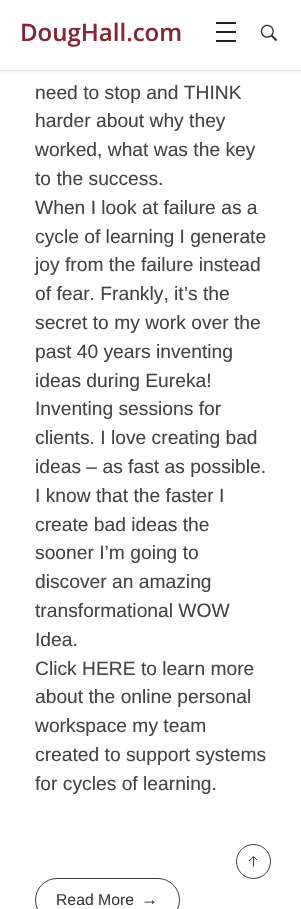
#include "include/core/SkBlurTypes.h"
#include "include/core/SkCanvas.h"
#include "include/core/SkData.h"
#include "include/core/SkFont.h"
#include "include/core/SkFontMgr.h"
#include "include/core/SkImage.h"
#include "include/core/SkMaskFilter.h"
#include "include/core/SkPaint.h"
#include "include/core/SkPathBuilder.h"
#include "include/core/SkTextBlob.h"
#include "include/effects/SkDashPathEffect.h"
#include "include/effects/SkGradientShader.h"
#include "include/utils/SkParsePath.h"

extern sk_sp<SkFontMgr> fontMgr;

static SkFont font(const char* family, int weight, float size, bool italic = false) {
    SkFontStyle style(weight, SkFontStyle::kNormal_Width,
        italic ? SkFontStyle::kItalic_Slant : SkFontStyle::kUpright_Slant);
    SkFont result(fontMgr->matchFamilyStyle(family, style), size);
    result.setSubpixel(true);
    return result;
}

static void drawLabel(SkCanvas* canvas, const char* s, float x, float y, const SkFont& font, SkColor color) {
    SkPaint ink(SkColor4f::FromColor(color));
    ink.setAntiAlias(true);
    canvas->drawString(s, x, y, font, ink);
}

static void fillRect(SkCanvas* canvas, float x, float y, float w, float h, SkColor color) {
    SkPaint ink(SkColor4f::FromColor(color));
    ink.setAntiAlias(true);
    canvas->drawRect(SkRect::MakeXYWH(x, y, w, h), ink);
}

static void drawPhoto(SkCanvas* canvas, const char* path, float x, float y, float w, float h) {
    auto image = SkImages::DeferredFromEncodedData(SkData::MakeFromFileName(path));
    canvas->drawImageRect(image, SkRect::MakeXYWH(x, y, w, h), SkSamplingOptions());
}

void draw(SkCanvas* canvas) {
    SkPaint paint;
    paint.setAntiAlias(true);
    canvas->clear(0xFFFFFFFF);
    fillRect(canvas, 0, 71, 301, 4, 0x08222222);
    fillRect(canvas, 0, 70, 301, 1, 0xFFDEDEDE);
    SkFont font1 = font("Open Sans", 600, 24);
    drawLabel(canvas, "DougHall.com", 20, 41, font1, 0xFF862633);
    fillRect(canvas, 216, 22, 20, 2, 0xFF222222);
    fillRect(canvas, 216, 31, 20, 2, 0xFF222222);
    fillRect(canvas, 216, 40, 20, 2, 0xFF222222);
    drawPhoto(canvas, "assets/img1.png", 260, 24, 18, 18);
    SkFont font2 = font("Liberation Sans", 400, 19.25f);
    drawLabel(canvas, "need to stop and THINK", 35, 99, font2, 0xFF444444);
    drawLabel(canvas, "harder about why they", 35, 127, font2, 0xFF444444);
    drawLabel(canvas, "worked, what was the key", 35, 156, font2, 0xFF444444);
    drawLabel(canvas, "to the success.", 35, 185, font2, 0xFF444444);
    drawLabel(canvas, "When I look at failure as a", 35, 214, font2, 0xFF444444);
    drawLabel(canvas, "cycle of learning I generate", 35, 243, font2, 0xFF444444);
    drawLabel(canvas, "joy from the failure instead", 35, 271, font2, 0xFF444444);
    drawLabel(canvas, "of fear. Frankly, it’s the", 35, 300, font2, 0xFF444444);
    drawLabel(canvas, "secret to my work over the", 35, 329, font2, 0xFF444444);
    drawLabel(canvas, "past 40 years inventing", 35, 358, font2, 0xFF444444);
    drawLabel(canvas, "ideas during Eureka!", 35, 387, font2, 0xFF444444);
    drawLabel(canvas, "Inventing sessions for", 35, 415, font2, 0xFF444444);
    drawLabel(canvas, "clients. I love creating bad", 35, 444, font2, 0xFF444444);
    drawLabel(canvas, "ideas – as fast as possible.", 35, 473, font2, 0xFF444444);
    drawLabel(canvas, "I know that the faster I", 35, 502, font2, 0xFF444444);
    drawLabel(canvas, "create bad ideas the", 35, 531, font2, 0xFF444444);
    drawLabel(canvas, "sooner I’m going to", 35, 559, font2, 0xFF444444);
    drawLabel(canvas, "discover an amazing", 35, 588, font2, 0xFF444444);
    drawLabel(canvas, "transformational WOW", 35, 617, font2, 0xFF444444);
    drawLabel(canvas, "Idea.", 35, 646, font2, 0xFF444444);
    drawLabel(canvas, "Click HERE to learn more", 35, 675, font2, 0xFF444444);
    drawLabel(canvas, "about the online personal", 35, 703, font2, 0xFF444444);
    drawLabel(canvas, "workspace my team", 35, 732, font2, 0xFF444444);
    drawLabel(canvas, "created to support systems", 35, 761, font2, 0xFF444444);
    drawLabel(canvas, "for cycles of learning.", 35, 790, font2, 0xFF444444);
    paint.setStroke(true);
    paint.setStrokeWidth(1);
    paint.setColor(0xFF3D3D3D);
    canvas->drawRoundRect(SkRect::MakeXYWH(35.5f, 878.5f, 144, 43), 21.5f, 21.5f, paint);
    SkFont font3 = font("Liberation Sans", 400, 15.75f);
    drawLabel(canvas, "Read More", 56, 905, font3, 0xFF3D3D3D);
    SkFont font4 = font("Liberation Sans", 400, 17);
    drawLabel(canvas, "→", 141, 905, font4, 0xFF3D3D3D);
    canvas->drawCircle(253.5f, 861.5f, 17, paint);
    drawPhoto(canvas, "assets/img2.png", 249, 856, 8, 11);
}
